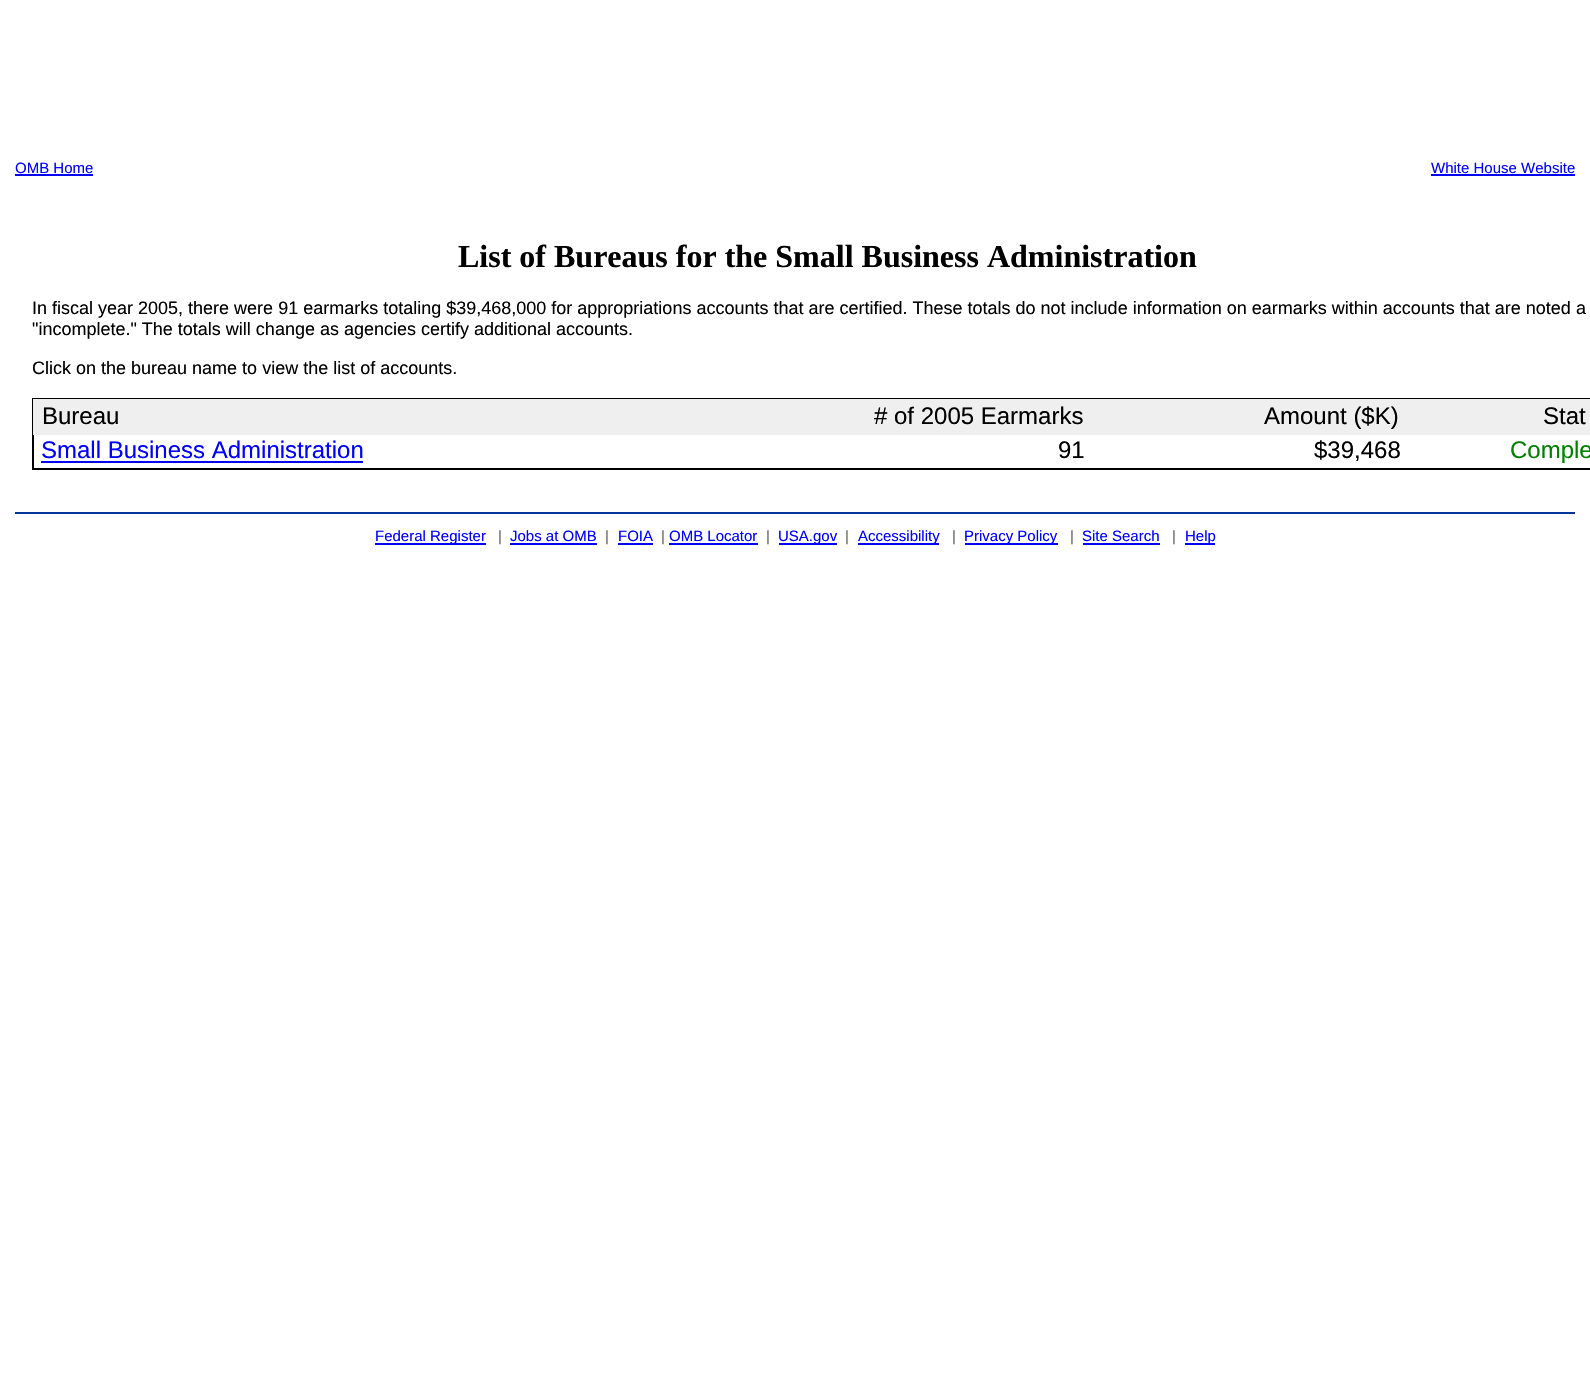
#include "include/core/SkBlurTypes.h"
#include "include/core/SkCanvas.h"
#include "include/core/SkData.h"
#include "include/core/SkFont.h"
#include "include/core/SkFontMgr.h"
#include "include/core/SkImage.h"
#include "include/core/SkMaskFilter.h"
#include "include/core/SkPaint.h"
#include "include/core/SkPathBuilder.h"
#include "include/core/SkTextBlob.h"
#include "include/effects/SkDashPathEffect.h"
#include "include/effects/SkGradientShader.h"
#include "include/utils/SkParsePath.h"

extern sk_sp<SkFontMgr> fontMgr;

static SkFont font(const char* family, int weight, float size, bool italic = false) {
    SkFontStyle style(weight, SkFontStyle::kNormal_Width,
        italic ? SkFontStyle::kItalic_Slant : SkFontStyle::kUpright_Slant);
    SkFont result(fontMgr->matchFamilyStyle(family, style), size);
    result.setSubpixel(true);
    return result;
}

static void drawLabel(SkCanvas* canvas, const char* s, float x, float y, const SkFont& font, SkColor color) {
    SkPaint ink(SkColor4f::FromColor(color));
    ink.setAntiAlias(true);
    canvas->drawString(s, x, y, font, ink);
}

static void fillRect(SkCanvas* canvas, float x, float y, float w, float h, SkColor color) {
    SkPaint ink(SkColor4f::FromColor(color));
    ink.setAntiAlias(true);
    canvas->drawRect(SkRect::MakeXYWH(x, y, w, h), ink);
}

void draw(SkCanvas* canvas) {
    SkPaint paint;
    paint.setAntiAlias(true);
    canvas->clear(0xFFFFFFFF);
    SkFont font1 = font("Liberation Sans", 400, 15);
    drawLabel(canvas, "OMB Home", 15, 173, font1, 0xFF0000FF);
    fillRect(canvas, 15, 174, 78, 2, 0xFF0000FF);
    drawLabel(canvas, "White House Website", 1431, 173, font1, 0xFF0000FF);
    fillRect(canvas, 1431, 174, 144, 2, 0xFF0000FF);
    SkFont font2 = font("Liberation Serif", 700, 32);
    drawLabel(canvas, "List of Bureaus for the Small Business Administration", 458, 267, font2, 0xFF000000);
    SkFont font3 = font("Liberation Sans", 400, 18);
    drawLabel(canvas, "In fiscal year 2005, there were 91 earmarks totaling $39,468,000 for appropriations accounts that are certified. These totals do not include information on earmarks within accounts that are noted a", 32, 314, font3, 0xFF000000);
    drawLabel(canvas, "\"incomplete.\" The totals will change as agencies certify additional accounts.", 32, 335, font3, 0xFF000000);
    drawLabel(canvas, "Click on the bureau name to view the list of accounts.", 32, 374, font3, 0xFF000000);
    paint.setStroke(true);
    paint.setStrokeWidth(2);
    paint.setColor(0xFF000000);
    canvas->drawRect(SkRect::MakeXYWH(33, 399, 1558, 70), paint);
    fillRect(canvas, 33, 399, 1557, 36, 0xFFEFEFEF);
    SkFont font4 = font("Liberation Sans", 400, 24);
    drawLabel(canvas, "Bureau", 42, 424, font4, 0xFF000000);
    drawLabel(canvas, "# of 2005 Earmarks", 874, 424, font4, 0xFF000000);
    drawLabel(canvas, "Amount ($K)", 1264, 424, font4, 0xFF000000);
    drawLabel(canvas, "Stat", 1543, 424, font4, 0xFF000000);
    drawLabel(canvas, "Small Business Administration", 41, 458, font4, 0xFF0000FF);
    fillRect(canvas, 41, 461, 322, 2, 0xFF0000FF);
    drawLabel(canvas, "91", 1058, 458, font4, 0xFF000000);
    drawLabel(canvas, "$39,468", 1314, 458, font4, 0xFF000000);
    drawLabel(canvas, "Comple", 1510, 458, font4, 0xFF008000);
    fillRect(canvas, 15, 512, 1560, 2, 0xFF003399);
    fillRect(canvas, 375, 543, 111, 2, 0xFF0000FF);
    drawLabel(canvas, "Federal Register", 375, 541, font1, 0xFF0000FF);
    drawLabel(canvas, "|", 498, 541, font1, 0xFF666666);
    drawLabel(canvas, "Jobs at OMB", 510, 541, font1, 0xFF0000FF);
    fillRect(canvas, 510, 543, 87, 2, 0xFF0000FF);
    drawLabel(canvas, "|", 605, 541, font1, 0xFF666666);
    drawLabel(canvas, "FOIA", 618, 541, font1, 0xFF0000FF);
    fillRect(canvas, 618, 543, 35, 2, 0xFF0000FF);
    drawLabel(canvas, "|", 661, 541, font1, 0xFF666666);
    drawLabel(canvas, "OMB Locator", 669, 541, font1, 0xFF0000FF);
    fillRect(canvas, 669, 543, 89, 2, 0xFF0000FF);
    drawLabel(canvas, "|", 766, 541, font1, 0xFF666666);
    fillRect(canvas, 779, 543, 58, 2, 0xFF0000FF);
    drawLabel(canvas, "USA.gov", 778, 541, font1, 0xFF0000FF);
    drawLabel(canvas, "|", 845, 541, font1, 0xFF666666);
    fillRect(canvas, 858, 543, 81, 2, 0xFF0000FF);
    drawLabel(canvas, "Accessibility", 858, 541, font1, 0xFF0000FF);
    drawLabel(canvas, "|", 952, 541, font1, 0xFF666666);
    fillRect(canvas, 965, 543, 93, 2, 0xFF0000FF);
    drawLabel(canvas, "Privacy Policy", 964, 541, font1, 0xFF0000FF);
    drawLabel(canvas, "|", 1070, 541, font1, 0xFF666666);
    drawLabel(canvas, "Site Search", 1082, 541, font1, 0xFF0000FF);
    fillRect(canvas, 1083, 543, 77, 2, 0xFF0000FF);
    drawLabel(canvas, "|", 1172, 541, font1, 0xFF666666);
    fillRect(canvas, 1185, 543, 30, 2, 0xFF0000FF);
    drawLabel(canvas, "Help", 1185, 541, font1, 0xFF0000FF);
}
